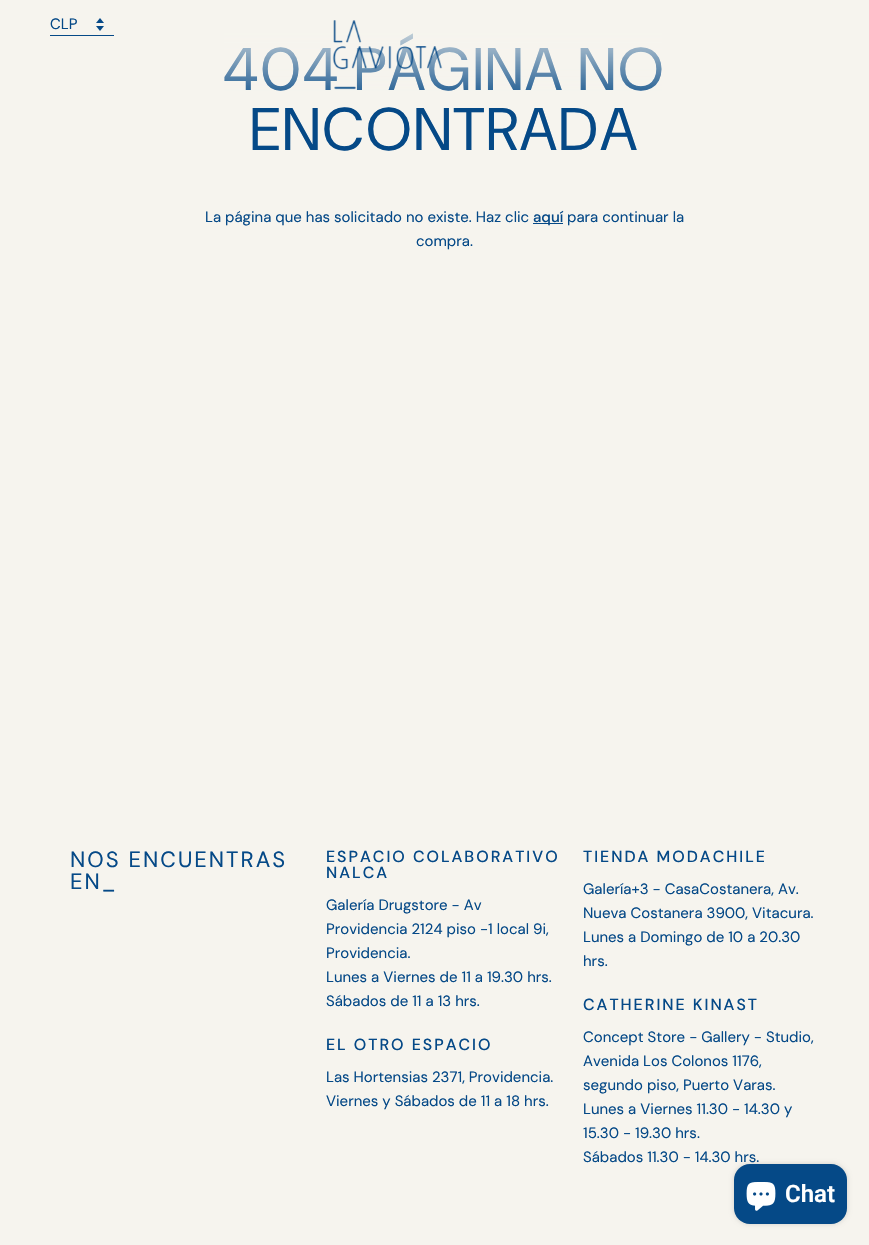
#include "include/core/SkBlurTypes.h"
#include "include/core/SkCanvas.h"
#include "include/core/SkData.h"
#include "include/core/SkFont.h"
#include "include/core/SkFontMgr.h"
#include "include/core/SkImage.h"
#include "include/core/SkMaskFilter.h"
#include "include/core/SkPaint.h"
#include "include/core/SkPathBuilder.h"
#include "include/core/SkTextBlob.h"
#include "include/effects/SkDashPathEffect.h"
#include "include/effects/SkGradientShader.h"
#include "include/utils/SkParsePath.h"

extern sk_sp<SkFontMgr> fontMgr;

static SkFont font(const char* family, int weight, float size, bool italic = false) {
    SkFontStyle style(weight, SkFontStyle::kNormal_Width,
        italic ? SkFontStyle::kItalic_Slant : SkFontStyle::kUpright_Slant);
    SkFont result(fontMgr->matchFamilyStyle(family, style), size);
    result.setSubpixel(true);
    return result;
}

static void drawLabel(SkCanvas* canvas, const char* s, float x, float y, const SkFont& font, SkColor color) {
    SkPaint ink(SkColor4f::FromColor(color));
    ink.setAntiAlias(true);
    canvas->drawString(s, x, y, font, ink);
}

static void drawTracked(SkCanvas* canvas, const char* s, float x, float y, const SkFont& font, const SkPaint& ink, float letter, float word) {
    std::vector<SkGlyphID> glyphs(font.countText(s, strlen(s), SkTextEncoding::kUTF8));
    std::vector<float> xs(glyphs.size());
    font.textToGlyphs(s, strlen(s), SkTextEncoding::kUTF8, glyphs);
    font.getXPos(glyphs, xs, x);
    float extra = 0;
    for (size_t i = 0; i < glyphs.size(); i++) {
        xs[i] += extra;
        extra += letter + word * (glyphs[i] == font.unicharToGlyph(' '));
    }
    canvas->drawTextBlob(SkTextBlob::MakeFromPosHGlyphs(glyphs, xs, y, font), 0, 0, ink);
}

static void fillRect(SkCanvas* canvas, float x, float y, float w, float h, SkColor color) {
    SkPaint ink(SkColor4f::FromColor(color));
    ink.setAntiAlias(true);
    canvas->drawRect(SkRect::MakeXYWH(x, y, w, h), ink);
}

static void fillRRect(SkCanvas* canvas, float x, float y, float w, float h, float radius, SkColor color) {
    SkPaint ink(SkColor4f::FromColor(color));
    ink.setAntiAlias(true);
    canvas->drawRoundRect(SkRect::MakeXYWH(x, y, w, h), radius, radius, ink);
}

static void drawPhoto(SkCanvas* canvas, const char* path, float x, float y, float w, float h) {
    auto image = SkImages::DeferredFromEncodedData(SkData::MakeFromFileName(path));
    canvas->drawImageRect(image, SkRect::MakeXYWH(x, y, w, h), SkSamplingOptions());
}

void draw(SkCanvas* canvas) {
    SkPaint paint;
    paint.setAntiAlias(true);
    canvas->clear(0xFFF6F4EE);
    SkFont font1 = font("DM Sans", 400, 60);
    paint.setColor(0xFF054987);
    drawTracked(canvas, "404 PÁGINA NO", 223, 90, font1, paint, 2, 0);
    {
        const SkColor colors[] = {0xFFF6F4EE, 0x00F6F4EE};
        const float stops[] = {0.1f, 1};
        const SkPoint ends[] = {{435, 0}, {435, 108}};
        paint.setShader(SkGradientShader::MakeLinear(ends, colors, stops, 2, SkTileMode::kClamp));
        paint.setAlpha(255);
    }
    canvas->drawRect(SkRect::MakeXYWH(224, 33, 438, 58), paint);
    drawPhoto(canvas, "assets/img1.png", 96, 18, 8, 13);
    fillRect(canvas, 50, 35, 64, 1, 0xFF054987);
    SkFont font2 = font("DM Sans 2", 400, 15);
    drawLabel(canvas, "CLP", 50, 29, font2, 0xFF054987);
    drawPhoto(canvas, "assets/img2.png", 332, 20, 111, 70);
    paint.setShader(nullptr);
    paint.setColor(0xFF054987);
    drawTracked(canvas, "ENCONTRADA", 250, 150, font1, paint, 2, 0);
    drawLabel(canvas, "La página que has solicitado no existe. Haz clic", 205, 222, font2, 0xFF054987);
    fillRect(canvas, 533, 223, 30, 1, 0xFF054987);
    SkFont font3 = font("DM Sans", 500, 15);
    drawLabel(canvas, "aquí", 533, 222, font3, 0xFF054987);
    drawLabel(canvas, "para continuar la", 567, 222, font2, 0xFF054987);
    drawLabel(canvas, "compra.", 416, 246, font2, 0xFF054987);
    SkFont font4 = font("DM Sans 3", 400, 22);
    drawTracked(canvas, "NOS ENCUENTRAS", 70, 867, font4, paint, 2, 0);
    drawTracked(canvas, "EN_", 70, 889, font4, paint, 2, 0);
    SkFont font5 = font("DM Sans 2", 500, 16);
    drawTracked(canvas, "ESPACIO COLABORATIVO", 326, 862, font5, paint, 2, 0);
    drawTracked(canvas, "NALCA", 326, 878, font5, paint, 2, 0);
    drawLabel(canvas, "Galería Drugstore - Av", 326, 910, font2, 0xFF054987);
    drawLabel(canvas, "Providencia 2124 piso -1 local 9i,", 326, 934, font2, 0xFF054987);
    drawLabel(canvas, "Providencia.", 326, 958, font2, 0xFF054987);
    drawLabel(canvas, "Lunes a Viernes de 11 a 19.30 hrs.", 326, 982, font2, 0xFF054987);
    drawLabel(canvas, "Sábados de 11 a 13 hrs.", 326, 1006, font2, 0xFF054987);
    drawTracked(canvas, "EL OTRO ESPACIO", 326, 1050, font5, paint, 2, 0);
    drawLabel(canvas, "Las Hortensias 2371, Providencia.", 326, 1082, font2, 0xFF054987);
    drawLabel(canvas, "Viernes y Sábados de 11 a 18 hrs.", 326, 1106, font2, 0xFF054987);
    drawTracked(canvas, "TIENDA MODACHILE", 583, 862, font5, paint, 2, 0);
    drawLabel(canvas, "Galería+3 - CasaCostanera, Av.", 583, 894, font2, 0xFF054987);
    drawLabel(canvas, "Nueva Costanera 3900, Vitacura.", 583, 918, font2, 0xFF054987);
    drawLabel(canvas, "Lunes a Domingo de 10 a 20.30", 583, 942, font2, 0xFF054987);
    drawLabel(canvas, "hrs.", 583, 966, font2, 0xFF054987);
    drawTracked(canvas, "CATHERINE KINAST", 583, 1010, font5, paint, 2, 0);
    drawLabel(canvas, "Concept Store - Gallery - Studio,", 583, 1042, font2, 0xFF054987);
    drawLabel(canvas, "Avenida Los Colonos 1176,", 583, 1066, font2, 0xFF054987);
    drawLabel(canvas, "segundo piso, Puerto Varas.", 583, 1090, font2, 0xFF054987);
    drawLabel(canvas, "Lunes a Viernes 11.30 - 14.30 y", 583, 1114, font2, 0xFF054987);
    drawLabel(canvas, "15.30 - 19.30 hrs.", 583, 1138, font2, 0xFF054987);
    drawLabel(canvas, "Sábados 11.30 - 14.30 hrs.", 583, 1162, font2, 0xFF054987);
    paint.setColor(0x26000000);
    paint.setMaskFilter(SkMaskFilter::MakeBlur(kNormal_SkBlurStyle, 2.5f));
    canvas->drawRoundRect(SkRect::MakeXYWH(734, 1164, 113, 60), 16, 16, paint);
    paint.setMaskFilter(nullptr);
    fillRRect(canvas, 734, 1164, 113, 60, 16, 0xFF054987);
    drawPhoto(canvas, "assets/img3.png", 746, 1182, 30, 29);
    SkFont font6 = font("Roboto", 600, 24);
    drawLabel(canvas, "Chat", 785, 1202, font6, 0xFFFFFFFF);
}
